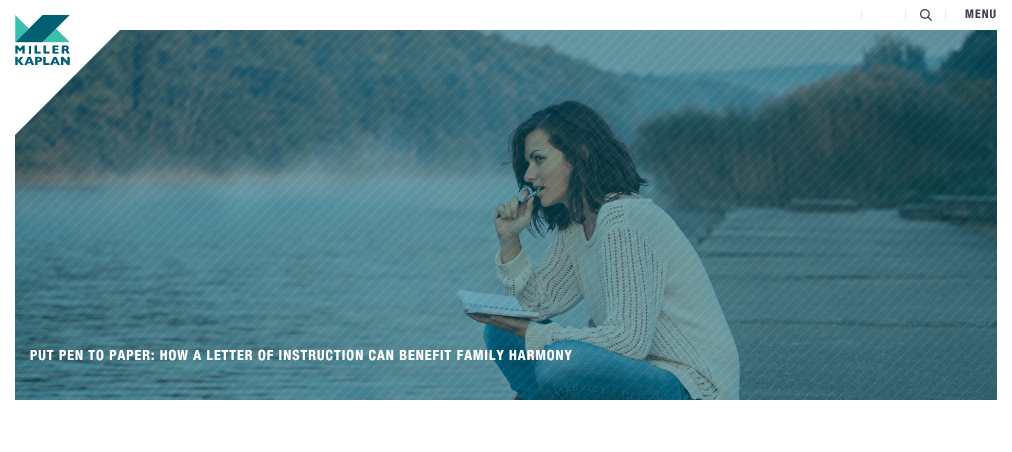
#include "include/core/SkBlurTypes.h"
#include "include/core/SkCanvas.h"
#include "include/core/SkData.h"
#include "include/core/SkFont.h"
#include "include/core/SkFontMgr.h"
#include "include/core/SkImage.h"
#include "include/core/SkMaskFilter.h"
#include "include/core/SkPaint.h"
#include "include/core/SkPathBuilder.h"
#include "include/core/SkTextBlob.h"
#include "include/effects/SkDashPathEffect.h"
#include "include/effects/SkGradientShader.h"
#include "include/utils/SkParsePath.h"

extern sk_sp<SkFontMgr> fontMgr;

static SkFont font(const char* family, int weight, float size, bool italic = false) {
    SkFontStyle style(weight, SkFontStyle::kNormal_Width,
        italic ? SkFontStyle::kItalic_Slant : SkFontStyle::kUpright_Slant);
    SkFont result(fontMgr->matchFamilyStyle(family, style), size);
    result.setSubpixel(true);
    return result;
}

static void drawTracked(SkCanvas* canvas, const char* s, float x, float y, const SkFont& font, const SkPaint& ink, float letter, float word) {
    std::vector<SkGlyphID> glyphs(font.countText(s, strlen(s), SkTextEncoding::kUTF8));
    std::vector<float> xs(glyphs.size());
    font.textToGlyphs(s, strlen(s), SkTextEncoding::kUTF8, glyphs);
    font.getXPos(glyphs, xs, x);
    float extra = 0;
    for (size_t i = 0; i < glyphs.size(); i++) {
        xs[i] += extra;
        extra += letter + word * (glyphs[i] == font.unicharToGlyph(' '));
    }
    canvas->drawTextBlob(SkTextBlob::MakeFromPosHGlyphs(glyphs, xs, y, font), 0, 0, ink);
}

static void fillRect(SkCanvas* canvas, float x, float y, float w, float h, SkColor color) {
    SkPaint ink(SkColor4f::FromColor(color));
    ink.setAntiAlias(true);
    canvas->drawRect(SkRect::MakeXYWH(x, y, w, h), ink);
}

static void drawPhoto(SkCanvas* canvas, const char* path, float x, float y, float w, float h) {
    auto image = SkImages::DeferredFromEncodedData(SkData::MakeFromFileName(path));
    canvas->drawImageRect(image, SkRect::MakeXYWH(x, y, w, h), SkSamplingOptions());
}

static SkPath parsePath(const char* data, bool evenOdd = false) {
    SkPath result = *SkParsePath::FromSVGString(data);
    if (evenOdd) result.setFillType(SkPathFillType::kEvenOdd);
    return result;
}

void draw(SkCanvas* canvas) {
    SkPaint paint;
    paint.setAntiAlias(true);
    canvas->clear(0xFFFFFFFF);
    fillRect(canvas, 861, 10, 1, 10, 0xFFD8F2EF);
    fillRect(canvas, 905, 10, 1, 10, 0xFFD8F2EF);
    drawPhoto(canvas, "assets/img1.png", 920, 9, 12, 12);
    fillRect(canvas, 945, 10, 1, 10, 0xFFD8F2EF);
    SkFont font1 = font("Helvetica Neue", 700, 12);
    paint.setColor(0xFF3D414E);
    drawTracked(canvas, "MENU", 965, 18, font1, paint, 1, 0);
    fillRect(canvas, 15, 30, 982, 370, 0xFF006072);
    drawPhoto(canvas, "assets/img3.png", 15, 30, 982, 370);
    drawPhoto(canvas, "assets/img4.png", 15, 30, 982, 370);
    paint.setColor(0xFFFFFFFF);
    canvas->drawPath(parsePath("M0 30H120L0 150Z"), paint);
    drawPhoto(canvas, "assets/img2.png", 15, 15, 55, 50);
    SkFont font2 = font("Helvetica Neue", 700, 14);
    drawTracked(canvas, "PUT PEN TO PAPER: HOW A LETTER OF INSTRUCTION CAN BENEFIT FAMILY HARMONY", 30, 360, font2, paint, 1, 0);
}
